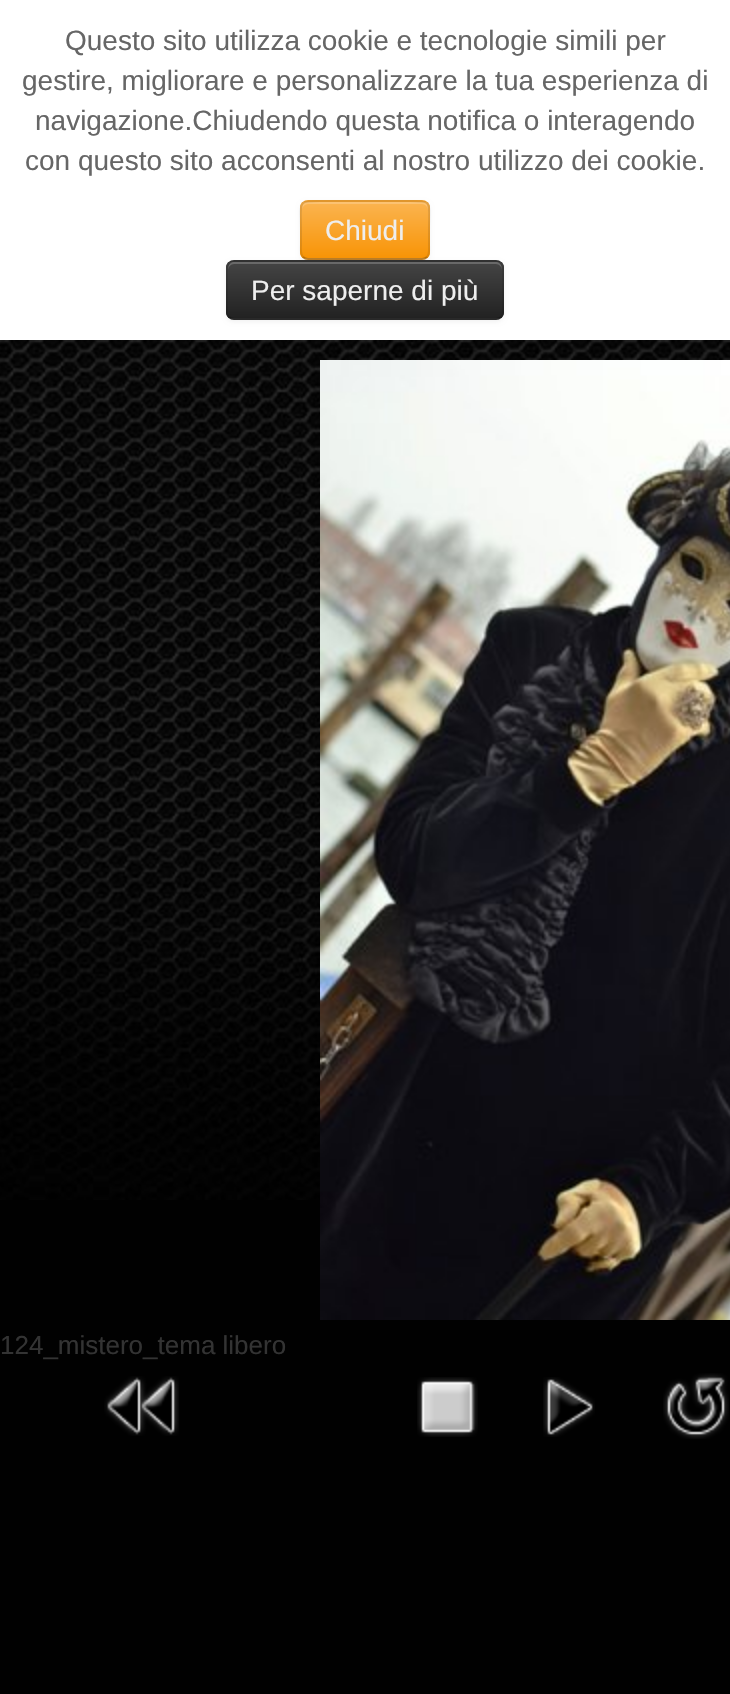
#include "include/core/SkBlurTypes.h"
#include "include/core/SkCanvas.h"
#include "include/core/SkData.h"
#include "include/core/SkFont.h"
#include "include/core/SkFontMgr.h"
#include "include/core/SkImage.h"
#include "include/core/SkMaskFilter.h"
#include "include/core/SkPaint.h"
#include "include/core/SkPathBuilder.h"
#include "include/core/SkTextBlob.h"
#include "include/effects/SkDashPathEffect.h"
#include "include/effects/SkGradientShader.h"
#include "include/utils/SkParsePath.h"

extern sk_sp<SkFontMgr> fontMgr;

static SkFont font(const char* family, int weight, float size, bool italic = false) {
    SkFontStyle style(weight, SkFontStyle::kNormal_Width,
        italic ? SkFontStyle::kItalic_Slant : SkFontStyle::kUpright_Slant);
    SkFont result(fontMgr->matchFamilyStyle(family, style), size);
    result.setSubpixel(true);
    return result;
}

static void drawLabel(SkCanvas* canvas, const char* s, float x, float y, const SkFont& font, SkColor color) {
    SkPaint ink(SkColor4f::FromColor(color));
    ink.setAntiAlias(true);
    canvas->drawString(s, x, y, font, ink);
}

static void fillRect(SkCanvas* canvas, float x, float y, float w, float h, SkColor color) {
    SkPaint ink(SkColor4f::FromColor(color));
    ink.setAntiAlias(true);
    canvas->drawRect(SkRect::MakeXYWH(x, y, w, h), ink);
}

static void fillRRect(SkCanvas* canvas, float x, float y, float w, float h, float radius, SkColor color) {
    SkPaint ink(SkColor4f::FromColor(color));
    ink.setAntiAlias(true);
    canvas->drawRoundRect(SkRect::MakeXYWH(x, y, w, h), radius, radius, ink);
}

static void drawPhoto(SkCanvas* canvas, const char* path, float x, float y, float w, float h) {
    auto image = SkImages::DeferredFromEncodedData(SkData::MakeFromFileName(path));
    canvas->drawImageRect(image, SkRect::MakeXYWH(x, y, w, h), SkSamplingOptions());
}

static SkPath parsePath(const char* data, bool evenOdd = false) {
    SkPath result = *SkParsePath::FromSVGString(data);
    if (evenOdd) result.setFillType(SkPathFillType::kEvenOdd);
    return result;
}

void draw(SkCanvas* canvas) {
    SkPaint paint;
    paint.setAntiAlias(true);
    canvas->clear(0xFF010101);
    drawPhoto(canvas, "assets/img1.png", 0, 340, 730, 860);
    fillRect(canvas, 0, 0, 730, 340, 0xFFFFFFFF);
    SkFont font1 = font("Liberation Sans", 400, 28);
    drawLabel(canvas, "Questo sito utilizza cookie e tecnologie simili per", 65, 50, font1, 0xFF666666);
    drawLabel(canvas, "gestire, migliorare e personalizzare la tua esperienza di", 22, 90, font1, 0xFF666666);
    drawLabel(canvas, "navigazione.Chiudendo questa notifica o interagendo", 35, 130, font1, 0xFF666666);
    drawLabel(canvas, "con questo sito acconsenti al nostro utilizzo dei cookie.", 25, 170, font1, 0xFF666666);
    paint.setColor(0x0D000000);
    paint.setMaskFilter(SkMaskFilter::MakeBlur(kNormal_SkBlurStyle, 2));
    canvas->drawRoundRect(SkRect::MakeXYWH(300, 202, 130, 60), 8, 8, paint);
    paint.setMaskFilter(nullptr);
    fillRRect(canvas, 300, 200, 130, 60, 8, 0xFFFAA732);
    canvas->save();
    canvas->clipPath(parsePath("M308 200H422C426.5 200 430 203.5 430 208V252C430 256.5 426.5 260 422 260H308C303.5 260 300 256.5 300 252V208C300 203.5 303.5 200 308 200Z"), true);
    {
        const SkColor colors[] = {0xFFFBB450, 0xFFF89406};
        const float stops[] = {0, 1};
        const SkPoint ends[] = {{365, 202}, {365, 258}};
        paint.setShader(SkGradientShader::MakeLinear(ends, colors, stops, 2, SkTileMode::kClamp));
        paint.setAlpha(255);
    }
    canvas->drawRect(SkRect::MakeXYWH(300, 202, 130, 56), paint);
    canvas->restore();
    paint.setShader(nullptr);
    paint.setColor(0x33FFFFFF);
    canvas->drawPath(parsePath("M308 204H422C425 204 428 207 428 210V208C428 205 425 202 422 202H308C305 202 302 205 302 208V210C302 207 305 204 308 204Z"), paint);
    paint.setStroke(true);
    paint.setStrokeWidth(2);
    paint.setColor(0x40000000);
    canvas->drawPath(parsePath("M427 257C425.5 258.5 424 259 422 259H308C306 259 304.5 258.5 303 257"), paint);
    paint.setColor(0x1A000000);
    canvas->drawPath(parsePath("M303 257C300 254 301 248.5 301 244.5V230C301 198.5 296 201 327 201H403C434 201 429 198.5 429 230V244.5C429 248.5 430 254 427 257"), paint);
    drawLabel(canvas, "Chiudi", 325, 240, font1, 0xFFEEEEEE);
    paint.setStroke(false);
    paint.setColor(0x0D000000);
    paint.setMaskFilter(SkMaskFilter::MakeBlur(kNormal_SkBlurStyle, 2));
    canvas->drawRoundRect(SkRect::MakeXYWH(226, 262, 278, 60), 8, 8, paint);
    paint.setMaskFilter(nullptr);
    fillRRect(canvas, 226, 260, 278, 60, 8, 0xFF363636);
    canvas->save();
    canvas->clipPath(parsePath("M234 260H496C500.5 260 504 263.5 504 268V312C504 316.5 500.5 320 496 320H234C229.5 320 226 316.5 226 312V268C226 263.5 229.5 260 234 260Z"), true);
    {
        const SkColor colors[] = {0xFF444444, 0xFF222222};
        const float stops[] = {0, 1};
        const SkPoint ends[] = {{365, 262}, {365, 318}};
        paint.setShader(SkGradientShader::MakeLinear(ends, colors, stops, 2, SkTileMode::kClamp));
        paint.setAlpha(255);
    }
    canvas->drawRect(SkRect::MakeXYWH(226, 262, 278, 56), paint);
    canvas->restore();
    paint.setShader(nullptr);
    paint.setColor(0xFF696969);
    canvas->drawPath(parsePath("M234 264H496C499 264 502 267 502 270C502 267 501 263 497 262H233C229 263 228 267 228 270C228 267 231 264 234 264Z"), paint);
    paint.setStroke(true);
    paint.setColor(0x40000000);
    canvas->drawPath(parsePath("M501 317C499.5 318.5 498 319 496 319H234C232 319 230.5 318.5 229 317"), paint);
    paint.setColor(0x1A000000);
    canvas->drawPath(parsePath("M229 317C227.5 315.5 227 314 227 312V268C227 266 227.5 264.5 229 263C230.5 261.5 232 261 234 261H496C498 261 499.5 261.5 501 263C502.5 264.5 503 266 503 268V312C503 314 502.5 315.5 501 317"), paint);
    drawLabel(canvas, "Per saperne di più", 251, 300, font1, 0xFFEEEEEE);
    drawPhoto(canvas, "assets/img2.png", 320, 360, 410, 960);
    SkFont font2 = font("Liberation Sans", 400, 26);
    drawLabel(canvas, "124_mistero_tema libero", 0, 1354, font2, 0xFF333333);
    drawPhoto(canvas, "assets/img3.png", 104, 1376, 75, 60);
    drawPhoto(canvas, "assets/img4.png", 417, 1377, 61, 60);
    drawPhoto(canvas, "assets/img5.png", 543, 1377, 52, 60);
    drawPhoto(canvas, "assets/img6.png", 663, 1373, 66, 66);
}
